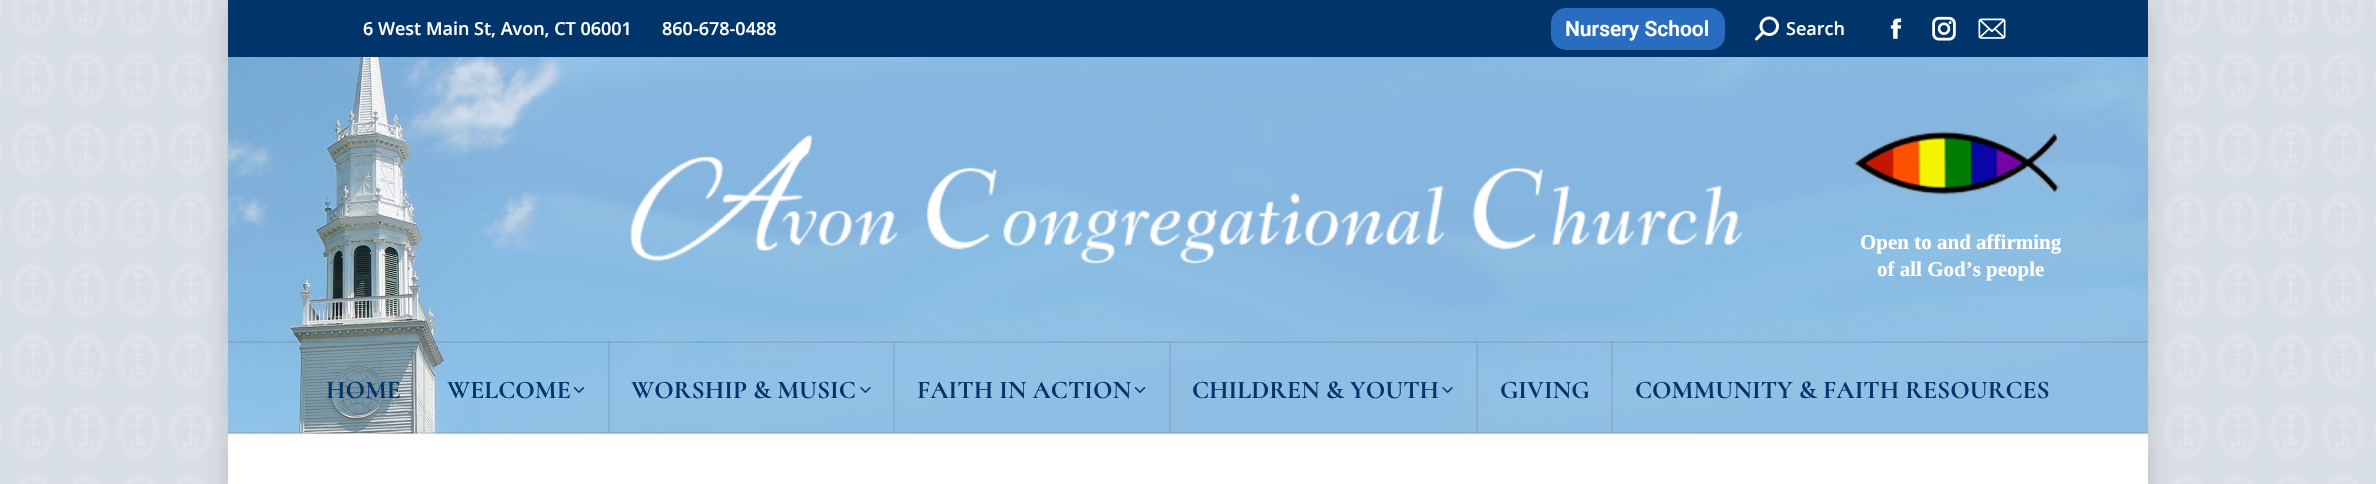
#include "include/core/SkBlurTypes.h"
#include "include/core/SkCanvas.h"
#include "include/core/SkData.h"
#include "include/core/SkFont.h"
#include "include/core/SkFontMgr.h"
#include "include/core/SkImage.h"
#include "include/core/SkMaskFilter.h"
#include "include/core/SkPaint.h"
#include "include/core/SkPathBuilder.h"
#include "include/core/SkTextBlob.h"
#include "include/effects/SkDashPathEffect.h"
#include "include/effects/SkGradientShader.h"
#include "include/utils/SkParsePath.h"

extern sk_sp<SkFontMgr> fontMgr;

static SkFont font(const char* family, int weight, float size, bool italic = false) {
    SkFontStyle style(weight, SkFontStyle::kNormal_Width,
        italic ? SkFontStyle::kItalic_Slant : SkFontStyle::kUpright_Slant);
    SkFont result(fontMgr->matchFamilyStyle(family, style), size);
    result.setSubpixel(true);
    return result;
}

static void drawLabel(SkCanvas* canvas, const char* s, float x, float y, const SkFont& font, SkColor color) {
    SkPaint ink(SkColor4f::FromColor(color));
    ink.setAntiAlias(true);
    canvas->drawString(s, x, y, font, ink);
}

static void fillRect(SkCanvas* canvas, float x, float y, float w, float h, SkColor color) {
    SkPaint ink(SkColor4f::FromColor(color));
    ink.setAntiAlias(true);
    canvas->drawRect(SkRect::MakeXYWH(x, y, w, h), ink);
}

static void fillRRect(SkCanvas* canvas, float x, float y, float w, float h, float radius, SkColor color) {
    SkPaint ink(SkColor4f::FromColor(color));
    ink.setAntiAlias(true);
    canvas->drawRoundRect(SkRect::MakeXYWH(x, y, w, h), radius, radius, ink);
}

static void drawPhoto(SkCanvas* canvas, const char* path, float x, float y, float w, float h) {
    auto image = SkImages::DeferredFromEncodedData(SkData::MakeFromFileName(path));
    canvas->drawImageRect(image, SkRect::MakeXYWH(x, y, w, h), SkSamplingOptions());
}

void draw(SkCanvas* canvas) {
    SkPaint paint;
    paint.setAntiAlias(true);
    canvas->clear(0xFFF6F6F6);
    drawPhoto(canvas, "assets/img1.png", 0, 0, 2376, 484);
    paint.setColor(0x26000000);
    paint.setMaskFilter(SkMaskFilter::MakeBlur(kNormal_SkBlurStyle, 9));
    canvas->drawRect(SkRect::MakeXYWH(228, 0, 1920, 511), paint);
    paint.setMaskFilter(nullptr);
    fillRect(canvas, 228, 433, 1920, 51, 0xFFFFFFFF);
    drawPhoto(canvas, "assets/img2.png", 228, 57, 1920, 377);
    fillRect(canvas, 228, 432, 1920, 2, 0x213A3A3A);
    fillRect(canvas, 228, 0, 1920, 57, 0xFF00356B);
    SkFont font1 = font("Open Sans", 600, 18);
    drawLabel(canvas, "6 West Main St, Avon, CT 06001", 363, 35, font1, 0xFFFFFFFF);
    drawLabel(canvas, "860-678-0488", 662, 35, font1, 0xFFFFFFFF);
    fillRRect(canvas, 1551, 8, 174, 42, 15, 0xFF286DC0);
    SkFont font2 = font("Roboto", 600, 21);
    drawLabel(canvas, "Nursery School", 1565, 36, font2, 0xFFFFFFFF);
    drawPhoto(canvas, "assets/img3.png", 1755, 16, 24, 25);
    drawLabel(canvas, "Search", 1786, 35, font1, 0xFFFFFFFF);
    drawPhoto(canvas, "assets/img4.png", 1890, 18, 12, 21);
    drawPhoto(canvas, "assets/img5.png", 1932, 16, 24, 25);
    drawPhoto(canvas, "assets/img6.png", 1978, 18, 28, 21);
    drawPhoto(canvas, "assets/img7.png", 630, 134, 1112, 131);
    drawPhoto(canvas, "assets/img8.png", 1853, 131, 207, 68);
    SkFont font3 = font("Liberation Serif", 700, 21);
    drawLabel(canvas, "Open to and affirming", 1860, 249, font3, 0xFFFFFFFF);
    drawLabel(canvas, "of all God’s people", 1877, 276, font3, 0xFFFFFFFF);
    fillRect(canvas, 228, 341, 1920, 2, 0x213A3A3A);
    SkFont font4 = font("Cormorant", 700, 25.5f);
    drawLabel(canvas, "HOME", 326, 398, font4, 0xFF00356B);
    fillRect(canvas, 423, 342, 2, 90, 0x1F3A3A3A);
    drawLabel(canvas, "WELCOME", 447, 398, font4, 0xFF00356B);
    drawPhoto(canvas, "assets/img9.png", 573, 387, 12, 6);
    fillRect(canvas, 608, 342, 2, 90, 0x1F3A3A3A);
    drawLabel(canvas, "WORSHIP & MUSIC", 631, 398, font4, 0xFF00356B);
    drawPhoto(canvas, "assets/img10.png", 860, 387, 11, 6);
    fillRect(canvas, 893, 342, 2, 90, 0x1F3A3A3A);
    drawLabel(canvas, "FAITH IN ACTION", 917, 398, font4, 0xFF00356B);
    drawPhoto(canvas, "assets/img11.png", 1134, 387, 12, 6);
    fillRect(canvas, 1169, 342, 2, 90, 0x1F3A3A3A);
    drawLabel(canvas, "CHILDREN & YOUTH", 1192, 398, font4, 0xFF00356B);
    drawPhoto(canvas, "assets/img12.png", 1442, 387, 11, 6);
    fillRect(canvas, 1476, 342, 2, 90, 0x1F3A3A3A);
    drawLabel(canvas, "GIVING", 1500, 398, font4, 0xFF00356B);
    fillRect(canvas, 1611, 342, 2, 90, 0x1F3A3A3A);
    drawLabel(canvas, "COMMUNITY & FAITH RESOURCES", 1635, 398, font4, 0xFF00356B);
}
